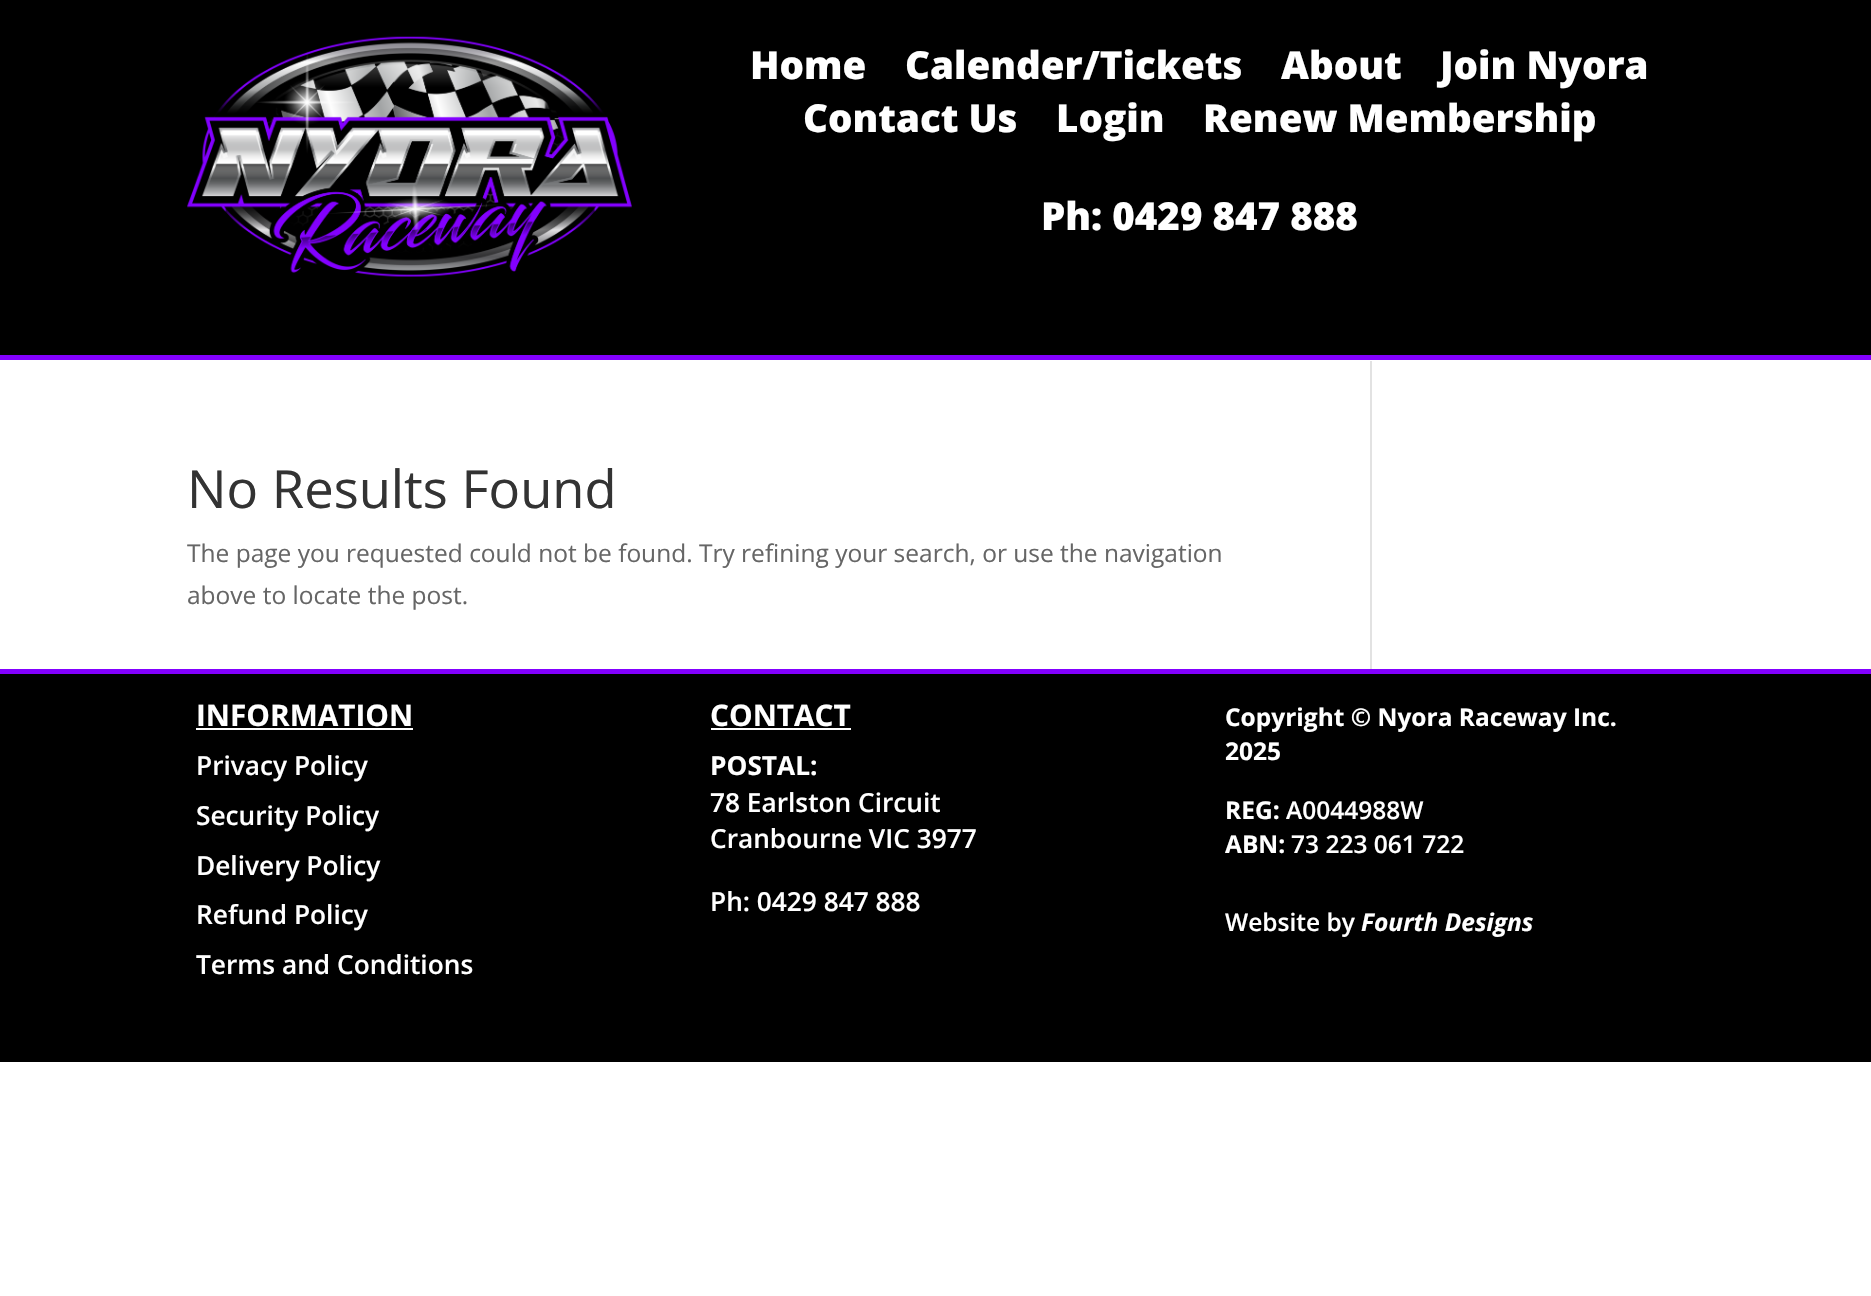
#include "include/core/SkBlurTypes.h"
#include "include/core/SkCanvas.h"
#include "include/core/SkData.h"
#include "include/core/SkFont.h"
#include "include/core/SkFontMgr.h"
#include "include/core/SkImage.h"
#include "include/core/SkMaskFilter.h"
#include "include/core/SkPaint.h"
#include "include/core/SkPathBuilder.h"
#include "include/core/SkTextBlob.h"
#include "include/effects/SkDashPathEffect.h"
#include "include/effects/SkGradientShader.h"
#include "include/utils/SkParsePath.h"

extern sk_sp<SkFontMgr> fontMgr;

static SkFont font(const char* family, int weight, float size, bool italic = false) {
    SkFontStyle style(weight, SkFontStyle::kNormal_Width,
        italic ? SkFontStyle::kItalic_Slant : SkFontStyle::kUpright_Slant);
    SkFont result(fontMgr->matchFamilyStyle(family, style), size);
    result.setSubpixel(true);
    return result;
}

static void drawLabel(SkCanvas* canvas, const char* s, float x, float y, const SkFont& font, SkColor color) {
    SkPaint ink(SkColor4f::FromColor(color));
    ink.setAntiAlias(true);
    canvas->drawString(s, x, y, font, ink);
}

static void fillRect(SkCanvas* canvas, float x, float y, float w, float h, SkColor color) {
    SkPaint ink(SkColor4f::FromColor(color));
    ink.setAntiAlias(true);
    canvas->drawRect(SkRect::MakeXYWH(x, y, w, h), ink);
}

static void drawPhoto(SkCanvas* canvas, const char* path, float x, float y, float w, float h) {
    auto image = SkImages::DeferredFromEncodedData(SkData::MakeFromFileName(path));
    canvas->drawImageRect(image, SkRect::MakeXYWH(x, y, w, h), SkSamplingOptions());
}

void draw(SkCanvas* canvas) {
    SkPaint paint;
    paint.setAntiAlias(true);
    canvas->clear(0xFFFFFFFF);
    fillRect(canvas, 0, 0, 1871, 355, 0xFF000000);
    fillRect(canvas, 0, 355, 1871, 5, 0xFF8300FF);
    drawPhoto(canvas, "assets/img1.png", 187, 36, 445, 241);
    SkFont font1 = font("Open Sans", 800, 38.5f);
    drawLabel(canvas, "Home", 750, 79, font1, 0xFFFFFFFF);
    drawLabel(canvas, "Calender/Tickets", 905, 79, font1, 0xFFFFFFFF);
    drawLabel(canvas, "About", 1281, 79, font1, 0xFFFFFFFF);
    drawLabel(canvas, "Join Nyora", 1440, 79, font1, 0xFFFFFFFF);
    drawLabel(canvas, "Contact Us", 803, 132, font1, 0xFFFFFFFF);
    drawLabel(canvas, "Login", 1056, 132, font1, 0xFFFFFFFF);
    drawLabel(canvas, "Renew Membership", 1203, 132, font1, 0xFFFFFFFF);
    drawLabel(canvas, "Ph: 0429 847 888", 1041, 230, font1, 0xFFFFFFFF);
    SkFont font2 = font("Open Sans", 400, 52.5f);
    drawLabel(canvas, "No Results Found", 187, 508, font2, 0xFF333333);
    SkFont font3 = font("Open Sans", 400, 24.5f);
    drawLabel(canvas, "The page you requested could not be found. Try refining your search, or use the navigation", 187, 562, font3, 0xFF666666);
    drawLabel(canvas, "above to locate the post.", 187, 604, font3, 0xFF666666);
    fillRect(canvas, 1370, 361, 2, 308, 0xFFE2E2E2);
    fillRect(canvas, 0, 674, 1871, 388, 0xFF000000);
    fillRect(canvas, 0, 669, 1871, 5, 0xFF8300FF);
    SkFont font4 = font("Open Sans", 700, 29.75f);
    drawLabel(canvas, "INFORMATION", 196, 726, font4, 0xFFFFFFFF);
    fillRect(canvas, 196, 728, 217, 2, 0xFFFFFFFF);
    SkFont font5 = font("Open Sans", 600, 26.25f);
    drawLabel(canvas, "Privacy Policy", 196, 775, font5, 0xFFFFFFFF);
    drawLabel(canvas, "Security Policy", 196, 825, font5, 0xFFFFFFFF);
    drawLabel(canvas, "Delivery Policy", 196, 875, font5, 0xFFFFFFFF);
    drawLabel(canvas, "Refund Policy", 196, 924, font5, 0xFFFFFFFF);
    drawLabel(canvas, "Terms and Conditions", 196, 974, font5, 0xFFFFFFFF);
    drawLabel(canvas, "CONTACT", 710, 726, font4, 0xFFFFFFFF);
    fillRect(canvas, 711, 728, 140, 2, 0xFFFFFFFF);
    SkFont font6 = font("Open Sans", 700, 26.25f);
    drawLabel(canvas, "POSTAL:", 710, 775, font6, 0xFFFFFFFF);
    drawLabel(canvas, "78 Earlston Circuit", 710, 812, font5, 0xFFFFFFFF);
    drawLabel(canvas, "Cranbourne VIC 3977", 710, 848, font5, 0xFFFFFFFF);
    drawLabel(canvas, "Ph: 0429 847 888", 710, 911, font5, 0xFFFFFFFF);
    SkFont font7 = font("Open Sans", 700, 24.5f);
    drawLabel(canvas, "Copyright © Nyora Raceway Inc.", 1225, 726, font7, 0xFFFFFFFF);
    drawLabel(canvas, "2025", 1225, 760, font7, 0xFFFFFFFF);
    drawLabel(canvas, "REG:", 1225, 819, font7, 0xFFFFFFFF);
    SkFont font8 = font("Open Sans", 600, 24.5f);
    drawLabel(canvas, "A0044988W", 1286, 819, font8, 0xFFFFFFFF);
    drawLabel(canvas, "ABN:", 1225, 853, font7, 0xFFFFFFFF);
    drawLabel(canvas, "73 223 061 722", 1291, 853, font8, 0xFFFFFFFF);
    drawLabel(canvas, "Website by", 1225, 931, font8, 0xFFFFFFFF);
    SkFont font9 = font("Open Sans", 700, 24.5f, true);
    drawLabel(canvas, "Fourth Designs", 1361, 931, font9, 0xFFFFFFFF);
}
